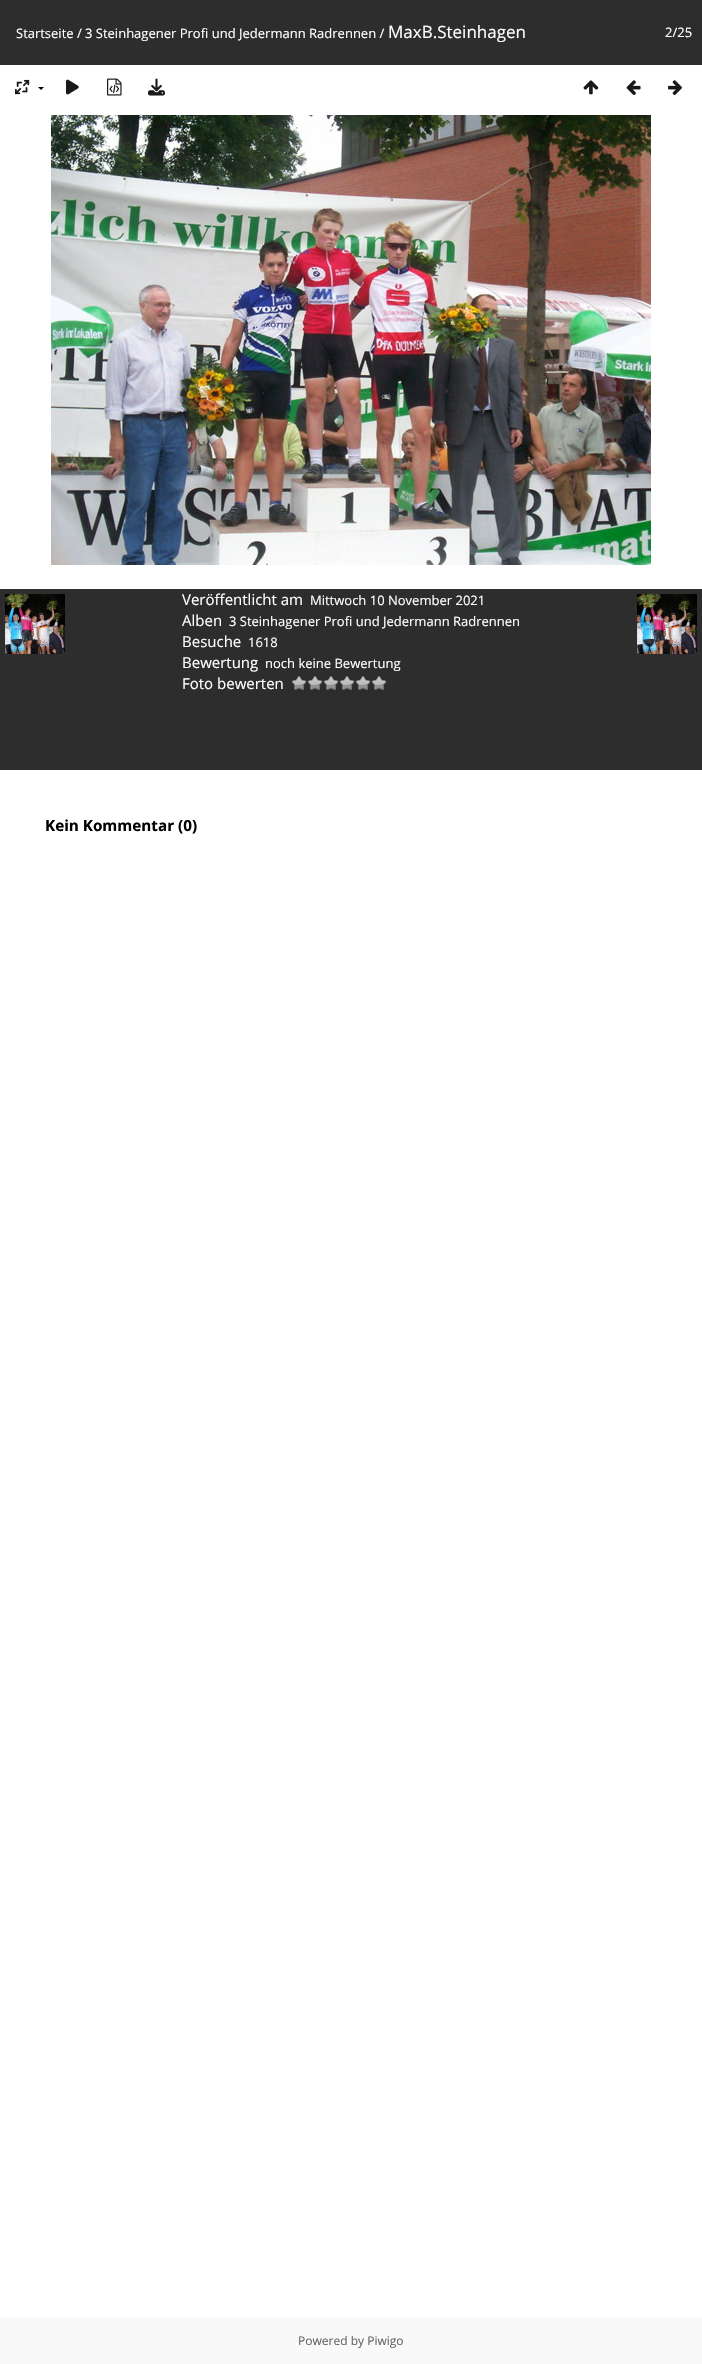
#include "include/core/SkBlurTypes.h"
#include "include/core/SkCanvas.h"
#include "include/core/SkData.h"
#include "include/core/SkFont.h"
#include "include/core/SkFontMgr.h"
#include "include/core/SkImage.h"
#include "include/core/SkMaskFilter.h"
#include "include/core/SkPaint.h"
#include "include/core/SkPathBuilder.h"
#include "include/core/SkTextBlob.h"
#include "include/effects/SkDashPathEffect.h"
#include "include/effects/SkGradientShader.h"
#include "include/utils/SkParsePath.h"

extern sk_sp<SkFontMgr> fontMgr;

static SkFont font(const char* family, int weight, float size, bool italic = false) {
    SkFontStyle style(weight, SkFontStyle::kNormal_Width,
        italic ? SkFontStyle::kItalic_Slant : SkFontStyle::kUpright_Slant);
    SkFont result(fontMgr->matchFamilyStyle(family, style), size);
    result.setSubpixel(true);
    return result;
}

static void drawLabel(SkCanvas* canvas, const char* s, float x, float y, const SkFont& font, SkColor color) {
    SkPaint ink(SkColor4f::FromColor(color));
    ink.setAntiAlias(true);
    canvas->drawString(s, x, y, font, ink);
}

static void fillRect(SkCanvas* canvas, float x, float y, float w, float h, SkColor color) {
    SkPaint ink(SkColor4f::FromColor(color));
    ink.setAntiAlias(true);
    canvas->drawRect(SkRect::MakeXYWH(x, y, w, h), ink);
}

static void drawPhoto(SkCanvas* canvas, const char* path, float x, float y, float w, float h) {
    auto image = SkImages::DeferredFromEncodedData(SkData::MakeFromFileName(path));
    canvas->drawImageRect(image, SkRect::MakeXYWH(x, y, w, h), SkSamplingOptions());
}

static SkPath parsePath(const char* data, bool evenOdd = false) {
    SkPath result = *SkParsePath::FromSVGString(data);
    if (evenOdd) result.setFillType(SkPathFillType::kEvenOdd);
    return result;
}

void draw(SkCanvas* canvas) {
    SkPaint paint;
    paint.setAntiAlias(true);
    canvas->clear(0xFFFFFFFF);
    fillRect(canvas, 0, 0, 702, 65, 0xFF2D2D2D);
    SkFont font1 = font("Open Sans", 400, 13);
    drawLabel(canvas, "Startseite / 3 Steinhagener Profi und Jedermann Radrennen /", 16, 38, font1, 0xFFFFFFFF);
    SkFont font2 = font("Open Sans", 400, 17);
    drawLabel(canvas, "MaxB.Steinhagen", 388, 38, font2, 0xFFFFFFFF);
    drawLabel(canvas, "2/25", 665, 37, font1, 0xFFFFFFFF);
    drawPhoto(canvas, "assets/img1.png", 15, 79, 15, 16);
    paint.setColor(0xFF000000);
    canvas->drawPath(parsePath("M38 87H44L41 90Z"), paint);
    drawPhoto(canvas, "assets/img2.png", 66, 79, 13, 16);
    drawPhoto(canvas, "assets/img3.png", 107, 78, 15, 18);
    drawPhoto(canvas, "assets/img4.png", 148, 78, 17, 18);
    drawPhoto(canvas, "assets/img5.png", 583, 80, 16, 15);
    drawPhoto(canvas, "assets/img6.png", 626, 80, 15, 15);
    drawPhoto(canvas, "assets/img7.png", 668, 80, 14, 15);
    drawPhoto(canvas, "assets/img8.png", 51, 115, 600, 450);
    fillRect(canvas, 0, 589, 702, 181, 0xFF2D2D2D);
    SkFont font3 = font("Open Sans", 400, 15);
    drawLabel(canvas, "Veröffentlicht am", 182, 605, font3, 0xFFFFFFFF);
    drawLabel(canvas, "Mittwoch 10 November 2021", 310, 605, font1, 0xFFFFFFFF);
    drawLabel(canvas, "Alben", 182, 626, font3, 0xFFFFFFFF);
    drawLabel(canvas, "3 Steinhagener Profi und Jedermann Radrennen", 229, 626, font1, 0xFFFFFFFF);
    drawLabel(canvas, "Besuche", 182, 647, font3, 0xFFFFFFFF);
    drawLabel(canvas, "1618", 248, 647, font1, 0xFFFFFFFF);
    drawLabel(canvas, "Bewertung", 182, 668, font3, 0xFFFFFFFF);
    drawLabel(canvas, "noch keine Bewertung", 265, 668, font1, 0xFFFFFFFF);
    drawLabel(canvas, "Foto bewerten", 182, 689, font3, 0xFFFFFFFF);
    drawPhoto(canvas, "assets/img9.png", 291, 676, 16, 14);
    drawPhoto(canvas, "assets/img9.png", 307, 676, 16, 14);
    drawPhoto(canvas, "assets/img9.png", 323, 676, 16, 14);
    drawPhoto(canvas, "assets/img9.png", 339, 676, 16, 14);
    drawPhoto(canvas, "assets/img9.png", 355, 676, 16, 14);
    drawPhoto(canvas, "assets/img9.png", 371, 676, 16, 14);
    drawPhoto(canvas, "assets/img10.png", 5, 594, 60, 60);
    drawPhoto(canvas, "assets/img10.png", 637, 594, 60, 60);
    SkFont font4 = font("Open Sans", 700, 15.25f);
    drawLabel(canvas, "Kein Kommentar (0)", 45, 831, font4, 0xFF000000);
    fillRect(canvas, 0, 2317, 702, 47, 0xFFF9F9F9);
    SkFont font5 = font("Open Sans", 400, 12);
    drawLabel(canvas, "Powered by Piwigo", 298, 2345, font5, 0xFF666666);
}
